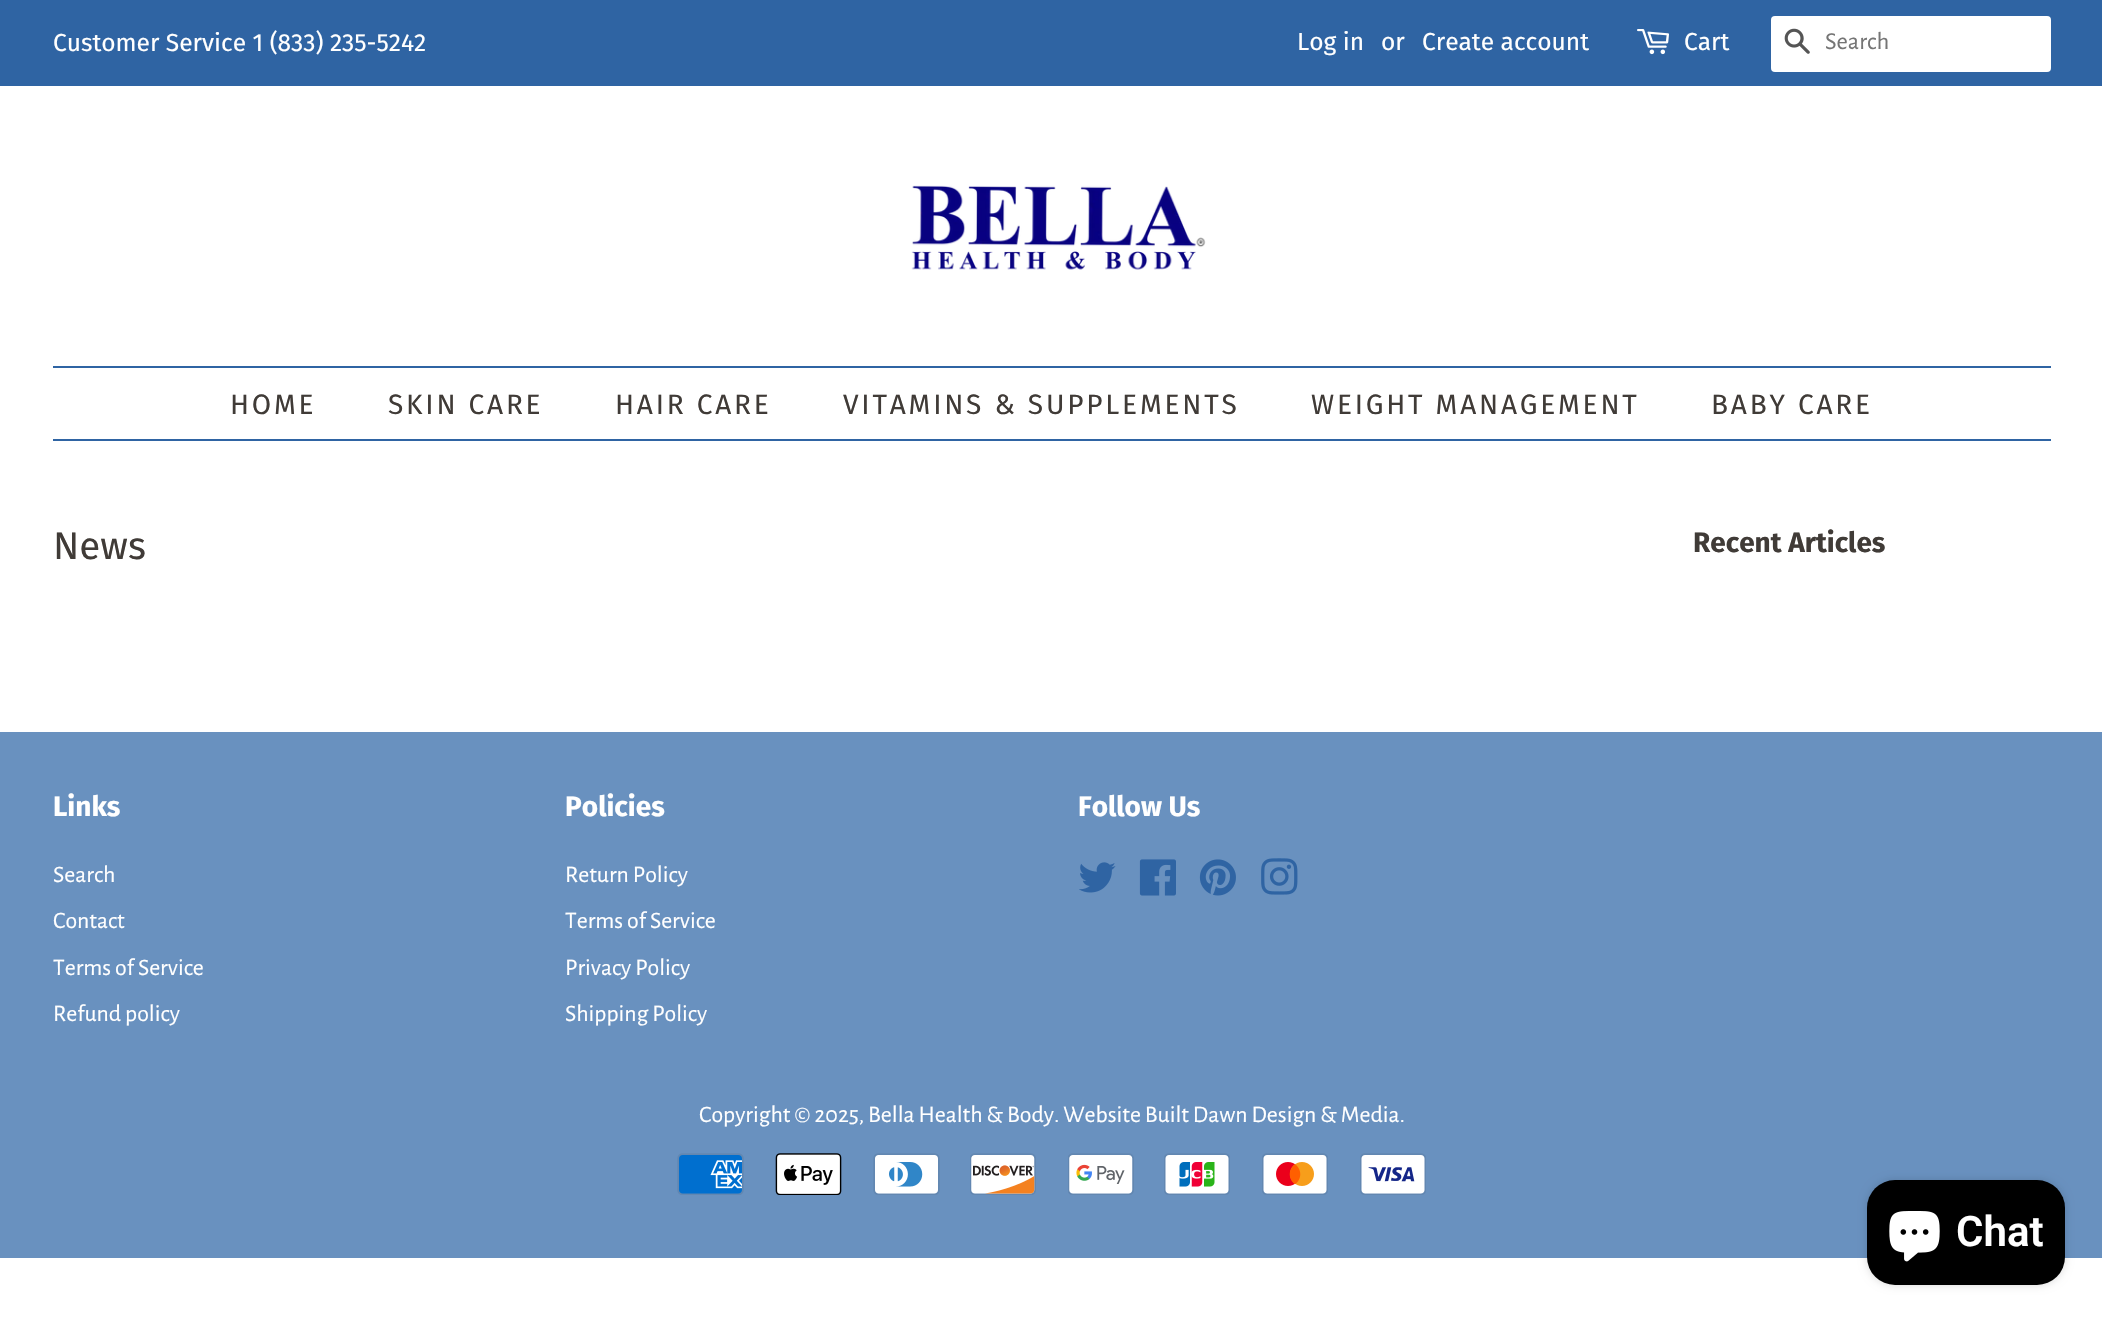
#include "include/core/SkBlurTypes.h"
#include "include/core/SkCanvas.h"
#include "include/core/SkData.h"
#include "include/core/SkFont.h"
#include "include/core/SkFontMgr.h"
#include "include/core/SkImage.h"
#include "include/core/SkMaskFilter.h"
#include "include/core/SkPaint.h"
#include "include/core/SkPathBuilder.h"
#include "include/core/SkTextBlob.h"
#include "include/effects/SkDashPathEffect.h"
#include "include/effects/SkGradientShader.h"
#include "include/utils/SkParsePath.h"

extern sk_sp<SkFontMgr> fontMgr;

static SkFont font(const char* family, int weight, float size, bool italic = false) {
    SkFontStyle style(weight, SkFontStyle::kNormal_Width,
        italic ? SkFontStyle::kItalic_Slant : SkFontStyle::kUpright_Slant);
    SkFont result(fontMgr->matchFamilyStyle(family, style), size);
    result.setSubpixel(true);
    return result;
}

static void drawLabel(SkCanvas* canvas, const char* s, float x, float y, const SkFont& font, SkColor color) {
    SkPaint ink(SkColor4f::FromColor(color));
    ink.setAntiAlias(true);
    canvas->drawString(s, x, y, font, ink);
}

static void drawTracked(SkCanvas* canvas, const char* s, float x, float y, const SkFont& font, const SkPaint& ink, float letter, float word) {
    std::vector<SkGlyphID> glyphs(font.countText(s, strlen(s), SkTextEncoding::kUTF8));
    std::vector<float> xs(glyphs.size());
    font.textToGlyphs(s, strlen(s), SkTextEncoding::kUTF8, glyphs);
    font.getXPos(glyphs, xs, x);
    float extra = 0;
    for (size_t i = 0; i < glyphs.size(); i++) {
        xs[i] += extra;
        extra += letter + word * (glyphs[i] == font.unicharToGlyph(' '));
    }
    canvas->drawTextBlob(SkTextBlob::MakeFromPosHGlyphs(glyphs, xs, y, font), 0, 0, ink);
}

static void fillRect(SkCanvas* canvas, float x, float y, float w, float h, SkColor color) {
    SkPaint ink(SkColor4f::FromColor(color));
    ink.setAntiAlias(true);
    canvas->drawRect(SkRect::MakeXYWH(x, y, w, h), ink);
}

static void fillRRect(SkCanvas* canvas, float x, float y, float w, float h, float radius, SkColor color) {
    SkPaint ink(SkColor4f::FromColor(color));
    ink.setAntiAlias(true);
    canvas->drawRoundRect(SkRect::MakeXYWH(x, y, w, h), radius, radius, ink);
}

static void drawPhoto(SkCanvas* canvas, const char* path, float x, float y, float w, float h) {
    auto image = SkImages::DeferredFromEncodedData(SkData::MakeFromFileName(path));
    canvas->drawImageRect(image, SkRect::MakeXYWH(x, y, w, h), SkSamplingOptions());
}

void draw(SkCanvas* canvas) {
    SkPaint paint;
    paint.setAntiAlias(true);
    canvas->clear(0xFFFFFFFF);
    fillRect(canvas, 0, 0, 2102, 86, 0xFF2F64A3);
    SkFont font1 = font("Fira Sans", 400, 24.5f);
    drawLabel(canvas, "Customer Service 1 (833) 235-5242", 53, 51, font1, 0xFFFFFFFF);
    drawLabel(canvas, "Log in", 1297, 50, font1, 0xFFFFFFFF);
    drawLabel(canvas, "or", 1381, 50, font1, 0xFFFFFFFF);
    drawLabel(canvas, "Create account", 1422, 50, font1, 0xFFFFFFFF);
    drawPhoto(canvas, "assets/img1.png", 1637, 29, 32, 26);
    drawLabel(canvas, "Cart", 1684, 50, font1, 0xFFFFFFFF);
    fillRRect(canvas, 1771, 16, 280, 56, 4, 0xFFFFFFFF);
    drawPhoto(canvas, "assets/img2.png", 1784, 28, 26, 26);
    SkFont font2 = font("Alegreya Sans", 400, 24.5f);
    drawLabel(canvas, "Search", 1825, 49, font2, 0xFF757575);
    drawPhoto(canvas, "assets/img3.png", 911, 185, 295, 85);
    fillRect(canvas, 53, 366, 1998, 2, 0xFF2F64A3);
    fillRect(canvas, 53, 439, 1998, 2, 0xFF2F64A3);
    SkFont font3 = font("Fira Sans", 400, 28);
    paint.setColor(0xFF403B37);
    drawTracked(canvas, "HOME", 230, 414, font3, paint, 2.8f, 0);
    drawTracked(canvas, "SKIN CARE", 388, 414, font3, paint, 2.8f, 0);
    drawTracked(canvas, "HAIR CARE", 615, 414, font3, paint, 2.8f, 0);
    drawTracked(canvas, "VITAMINS & SUPPLEMENTS", 843, 414, font3, paint, 2.8f, 0);
    drawTracked(canvas, "WEIGHT MANAGEMENT", 1311, 414, font3, paint, 2.8f, 0);
    drawTracked(canvas, "BABY CARE", 1711, 414, font3, paint, 2.8f, 0);
    SkFont font4 = font("Fira Sans", 400, 38.5f);
    drawLabel(canvas, "News", 53, 559, font4, 0xFF403B37);
    SkFont font5 = font("Fira Sans", 700, 28);
    drawLabel(canvas, "Recent Articles", 1693, 552, font5, 0xFF403B37);
    fillRect(canvas, 0, 732, 2102, 526, 0xFF6991BF);
    drawLabel(canvas, "Links", 53, 816, font5, 0xFFFFFFFF);
    SkFont font6 = font("Alegreya Sans", 400, 23.8f);
    drawLabel(canvas, "Search", 53, 882, font6, 0xFFFFFFFF);
    drawLabel(canvas, "Contact", 53, 928, font6, 0xFFFFFFFF);
    drawLabel(canvas, "Terms of Service", 53, 975, font6, 0xFFFFFFFF);
    drawLabel(canvas, "Refund policy", 53, 1021, font6, 0xFFFFFFFF);
    drawLabel(canvas, "Policies", 565, 816, font5, 0xFFFFFFFF);
    drawLabel(canvas, "Return Policy", 565, 882, font6, 0xFFFFFFFF);
    drawLabel(canvas, "Terms of Service", 565, 928, font6, 0xFFFFFFFF);
    drawLabel(canvas, "Privacy Policy", 565, 975, font6, 0xFFFFFFFF);
    drawLabel(canvas, "Shipping Policy", 565, 1021, font6, 0xFFFFFFFF);
    drawLabel(canvas, "Follow Us", 1078, 816, font5, 0xFFFFFFFF);
    drawPhoto(canvas, "assets/img4.png", 1079, 862, 37, 31);
    drawPhoto(canvas, "assets/img5.png", 1139, 859, 37, 37);
    drawPhoto(canvas, "assets/img6.png", 1199, 859, 37, 37);
    drawPhoto(canvas, "assets/img7.png", 1261, 858, 37, 37);
    drawLabel(canvas, "Copyright © 2025, Bella Health & Body. Website Built Dawn Design & Media.", 699, 1122, font6, 0xFFFFFFFF);
    drawPhoto(canvas, "assets/img8.png", 677, 1153, 67, 42);
    drawPhoto(canvas, "assets/img9.png", 775, 1153, 67, 42);
    drawPhoto(canvas, "assets/img10.png", 873, 1153, 67, 42);
    drawPhoto(canvas, "assets/img11.png", 970, 1153, 66, 42);
    drawPhoto(canvas, "assets/img12.png", 1068, 1153, 66, 42);
    drawPhoto(canvas, "assets/img13.png", 1164, 1153, 66, 42);
    drawPhoto(canvas, "assets/img14.png", 1262, 1153, 66, 42);
    drawPhoto(canvas, "assets/img15.png", 1360, 1153, 66, 42);
    paint.setColor(0x26000000);
    paint.setMaskFilter(SkMaskFilter::MakeBlur(kNormal_SkBlurStyle, 4.5f));
    canvas->drawRoundRect(SkRect::MakeXYWH(1867, 1180, 198, 105), 28, 28, paint);
    paint.setMaskFilter(nullptr);
    fillRRect(canvas, 1867, 1180, 198, 105, 28, 0xFF000000);
    drawPhoto(canvas, "assets/img16.png", 1889, 1211, 51, 51);
    SkFont font7 = font("Roboto", 600, 42);
    drawLabel(canvas, "Chat", 1956, 1246, font7, 0xFFFFFFFF);
}
